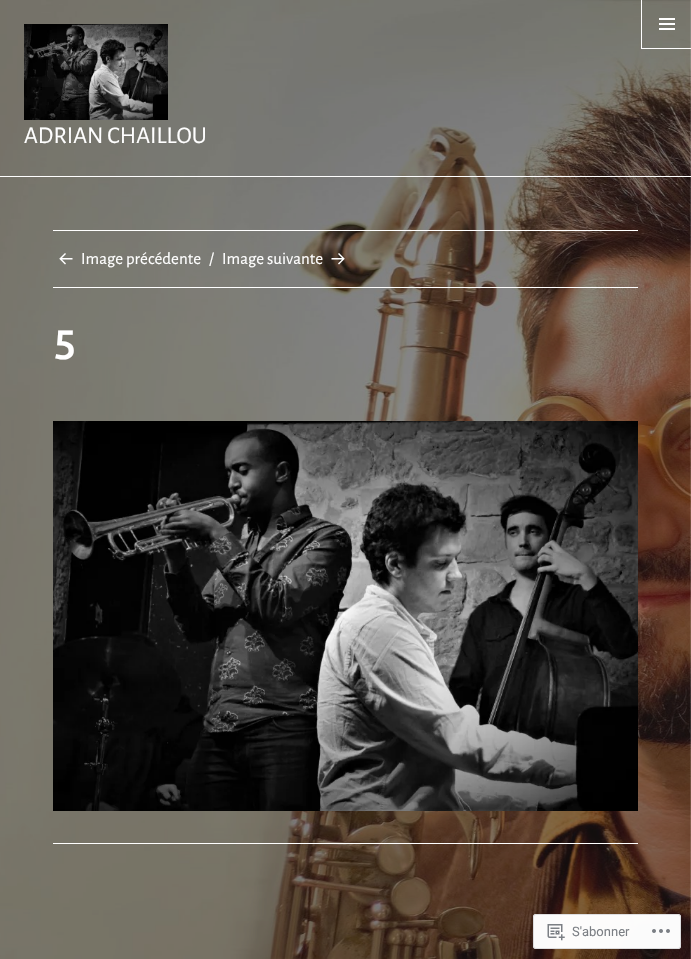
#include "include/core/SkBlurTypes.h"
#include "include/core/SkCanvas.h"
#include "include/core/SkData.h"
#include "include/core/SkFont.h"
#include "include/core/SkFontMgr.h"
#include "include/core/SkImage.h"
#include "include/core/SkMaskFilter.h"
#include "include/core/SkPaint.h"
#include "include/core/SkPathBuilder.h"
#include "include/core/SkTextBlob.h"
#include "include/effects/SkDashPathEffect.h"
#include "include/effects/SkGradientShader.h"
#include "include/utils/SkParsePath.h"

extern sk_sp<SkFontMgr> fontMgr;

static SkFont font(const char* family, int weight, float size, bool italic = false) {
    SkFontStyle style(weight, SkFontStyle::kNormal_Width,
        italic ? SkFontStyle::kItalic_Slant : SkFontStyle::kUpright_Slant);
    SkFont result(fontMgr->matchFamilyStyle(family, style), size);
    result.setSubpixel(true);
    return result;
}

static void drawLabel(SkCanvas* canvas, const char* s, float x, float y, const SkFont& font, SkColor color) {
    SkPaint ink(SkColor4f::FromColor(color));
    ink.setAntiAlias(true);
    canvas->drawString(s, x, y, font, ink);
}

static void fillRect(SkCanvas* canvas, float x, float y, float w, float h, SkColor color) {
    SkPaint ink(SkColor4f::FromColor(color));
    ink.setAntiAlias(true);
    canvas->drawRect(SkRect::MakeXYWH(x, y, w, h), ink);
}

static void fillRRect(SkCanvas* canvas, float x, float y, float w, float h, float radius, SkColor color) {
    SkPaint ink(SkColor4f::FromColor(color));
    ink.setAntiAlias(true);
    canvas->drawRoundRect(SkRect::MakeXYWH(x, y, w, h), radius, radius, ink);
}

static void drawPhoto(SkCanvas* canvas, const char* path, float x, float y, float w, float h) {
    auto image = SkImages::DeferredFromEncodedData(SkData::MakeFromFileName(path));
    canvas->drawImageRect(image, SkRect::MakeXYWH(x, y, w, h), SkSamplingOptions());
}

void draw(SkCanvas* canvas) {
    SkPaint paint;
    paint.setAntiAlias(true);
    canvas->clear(0xFFFFFFFF);
    drawPhoto(canvas, "assets/img1.png", 0, 0, 691, 959);
    fillRect(canvas, 0, 176, 691, 1, 0xFFFFFFFF);
    fillRect(canvas, 641, 48, 50, 1, 0xFFFFFFFF);
    fillRect(canvas, 641, 0, 1, 49, 0xFFFFFFFF);
    drawPhoto(canvas, "assets/img2.png", 659, 18, 16, 12);
    drawPhoto(canvas, "assets/img3.png", 24, 24, 144, 96);
    SkFont font1 = font("Alegreya Sans", 400, 24);
    drawLabel(canvas, "ADRIAN CHAILLOU", 24, 143, font1, 0xFFFFFFFF);
    fillRect(canvas, 53, 230, 585, 1, 0xFFFFFFFF);
    fillRect(canvas, 53, 287, 585, 1, 0xFFFFFFFF);
    drawPhoto(canvas, "assets/img4.png", 59, 253, 14, 12);
    SkFont font2 = font("Alegreya Sans", 400, 17);
    drawLabel(canvas, "Image précédente", 81, 264, font2, 0xFFFFFFFF);
    drawLabel(canvas, "∕", 209, 264, font2, 0xFFFFFFFF);
    drawLabel(canvas, "Image suivante", 222, 264, font2, 0xFFFFFFFF);
    drawPhoto(canvas, "assets/img5.png", 331, 253, 14, 12);
    SkFont font3 = font("Ubuntu", 500, 41);
    drawLabel(canvas, "5", 53, 359, font3, 0xFFFFFFFF);
    drawPhoto(canvas, "assets/img6.png", 53, 421, 585, 390);
    fillRect(canvas, 53, 843, 585, 1, 0xFFFFFFFF);
    fillRRect(canvas, 533, 914, 148, 35, 3, 0xFAFFFFFF);
    paint.setStroke(true);
    paint.setStrokeWidth(1);
    paint.setColor(0xFADCDCDE);
    canvas->drawRoundRect(SkRect::MakeXYWH(533.5f, 914.5f, 147, 34), 2.5f, 2.5f, paint);
    drawPhoto(canvas, "assets/img7.png", 547, 924, 18, 17);
    SkFont font4 = font("Roboto", 400, 13);
    drawLabel(canvas, "S'abonner", 572, 936, font4, 0xFF7B7F84);
    drawPhoto(canvas, "assets/img8.png", 652, 929, 18, 4);
}
